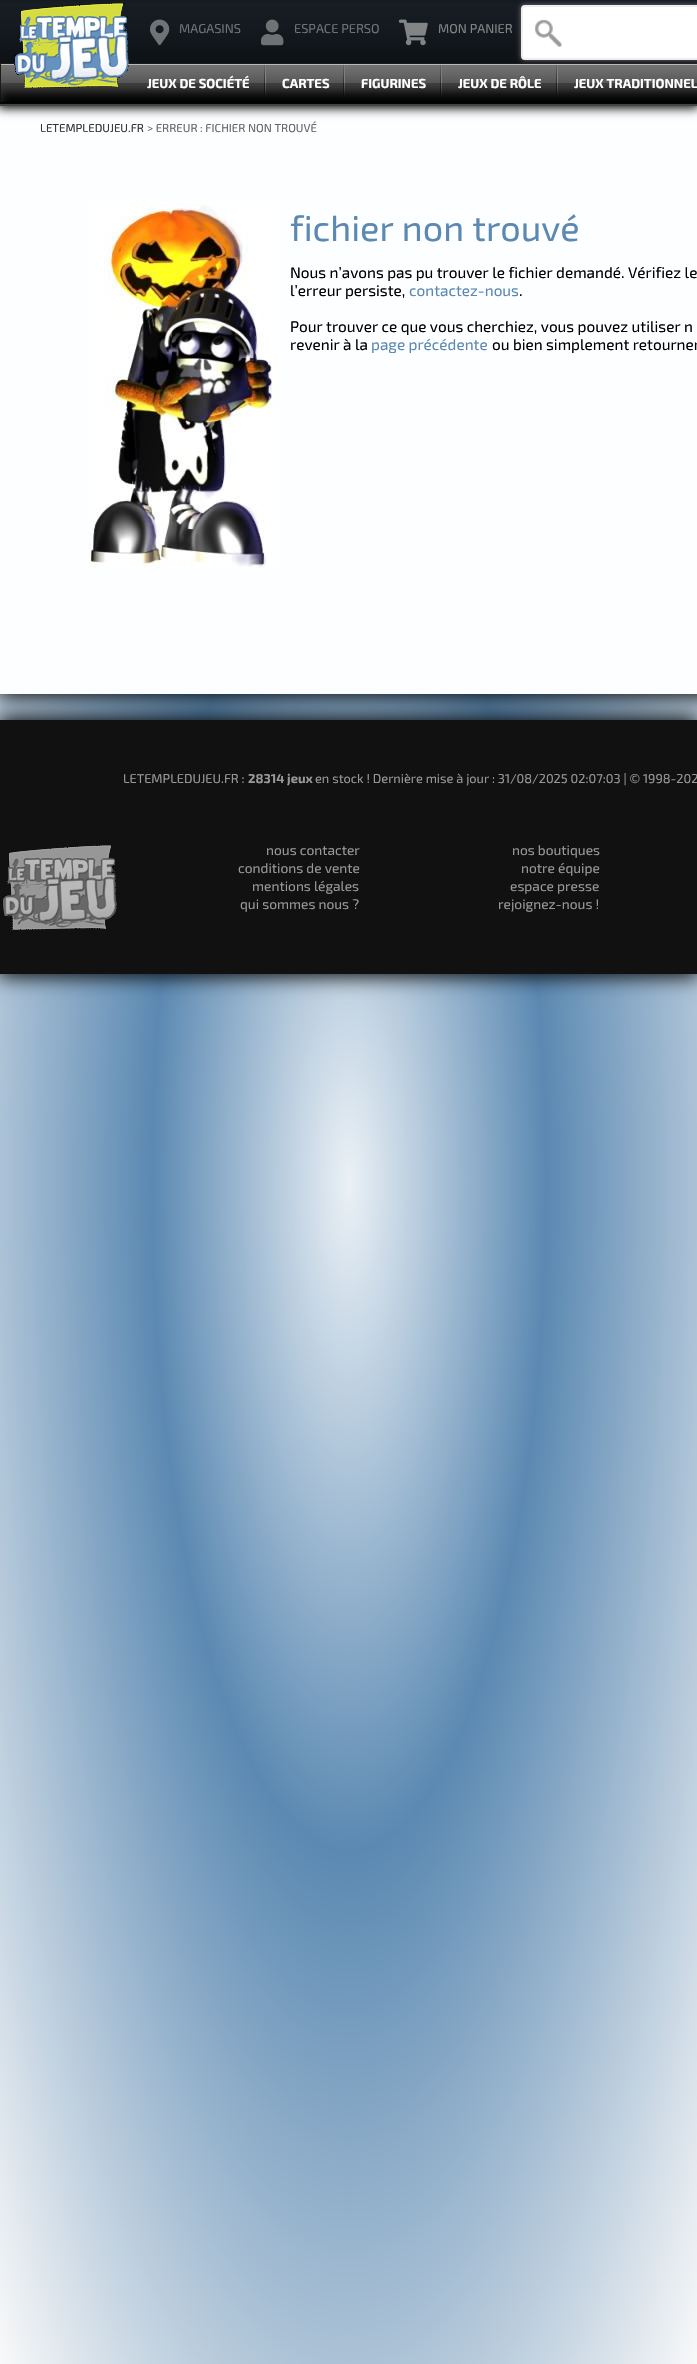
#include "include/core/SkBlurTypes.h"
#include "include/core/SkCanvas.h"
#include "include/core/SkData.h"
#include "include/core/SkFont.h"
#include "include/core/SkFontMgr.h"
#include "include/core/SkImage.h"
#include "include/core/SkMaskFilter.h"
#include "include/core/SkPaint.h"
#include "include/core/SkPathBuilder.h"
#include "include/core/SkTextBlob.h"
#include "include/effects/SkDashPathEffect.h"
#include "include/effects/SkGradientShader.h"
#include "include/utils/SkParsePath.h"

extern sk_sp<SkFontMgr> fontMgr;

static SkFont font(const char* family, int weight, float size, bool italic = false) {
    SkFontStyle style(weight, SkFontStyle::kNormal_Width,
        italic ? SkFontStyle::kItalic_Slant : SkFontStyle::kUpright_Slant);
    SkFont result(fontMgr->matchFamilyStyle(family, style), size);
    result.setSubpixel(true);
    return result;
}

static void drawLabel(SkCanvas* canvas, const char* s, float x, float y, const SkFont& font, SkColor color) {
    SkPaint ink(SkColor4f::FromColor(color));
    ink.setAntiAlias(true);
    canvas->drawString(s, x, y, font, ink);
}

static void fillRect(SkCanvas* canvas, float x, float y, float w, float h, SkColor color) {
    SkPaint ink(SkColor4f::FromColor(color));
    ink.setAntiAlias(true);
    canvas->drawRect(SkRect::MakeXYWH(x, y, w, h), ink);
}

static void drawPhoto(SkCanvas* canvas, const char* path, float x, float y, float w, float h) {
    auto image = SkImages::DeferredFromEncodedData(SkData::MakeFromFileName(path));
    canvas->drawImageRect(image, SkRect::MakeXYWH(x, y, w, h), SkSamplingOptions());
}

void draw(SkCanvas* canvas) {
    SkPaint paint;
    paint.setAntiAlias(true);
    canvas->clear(0xFFFFFFFF);
    {
        const SkColor colors[] = {0xFFEBF1F6, 0xFF5B89B2, 0xFFF9F9F9};
        const float stops[] = {0, 0.4f, 1};
        SkMatrix m = SkMatrix::Translate(349, 1182).preScale(493, 1672);
        paint.setShader(SkGradientShader::MakeRadial({0, 0}, 1, colors, stops, 3, SkTileMode::kClamp, 0, &m));
        paint.setAlpha(255);
    }
    canvas->drawRect(SkRect::MakeXYWH(0, 694, 697, 1670), paint);
    paint.setShader(nullptr);
    paint.setColor(0xFF000000);
    paint.setMaskFilter(SkMaskFilter::MakeBlur(kNormal_SkBlurStyle, 10));
    canvas->drawRect(SkRect::MakeXYWH(-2, 54, 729, 642), paint);
    paint.setMaskFilter(nullptr);
    fillRect(canvas, 0, 106, 697, 588, 0xFFFCFEFF);
    paint.setMaskFilter(SkMaskFilter::MakeBlur(kNormal_SkBlurStyle, 5));
    canvas->drawRect(SkRect::MakeXYWH(-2, -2, 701, 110), paint);
    paint.setMaskFilter(nullptr);
    drawPhoto(canvas, "assets/img1.png", 0, 0, 697, 104);
    fillRect(canvas, 0, 104, 697, 2, 0xFF444444);
    drawPhoto(canvas, "assets/img7.png", 1, 63, 696, 40);
    fillRect(canvas, 0, 63, 1, 40, 0xFF1B1B1B);
    drawPhoto(canvas, "assets/img8.png", 264, 64, 2, 38);
    drawPhoto(canvas, "assets/img9.png", 343, 64, 2, 38);
    drawPhoto(canvas, "assets/img9.png", 440, 64, 2, 38);
    drawPhoto(canvas, "assets/img8.png", 556, 64, 2, 38);
    canvas->save();
    canvas->clipRect(SkRect::MakeXYWH(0, 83, 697, 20));
    paint.setMaskFilter(SkMaskFilter::MakeBlur(kNormal_SkBlurStyle, 5));
    canvas->drawRect(SkRect::MakeXYWH(0, 93, 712, 48), paint);
    paint.setMaskFilter(nullptr);
    canvas->restore();
    drawPhoto(canvas, "assets/img2.png", 14, 3, 115, 85);
    drawPhoto(canvas, "assets/img3.png", 150, 19, 20, 27);
    SkFont font1 = font("Exo 2", 400, 12.8f);
    drawLabel(canvas, "MAGASINS", 179, 33, font1, 0xFF707375);
    drawPhoto(canvas, "assets/img4.png", 261, 19, 23, 27);
    drawLabel(canvas, "ESPACE PERSO", 294, 33, font1, 0xFF707375);
    drawPhoto(canvas, "assets/img5.png", 399, 19, 29, 27);
    drawLabel(canvas, "MON PANIER", 438, 33, font1, 0xFF828586);
    paint.setColor(0x4DFFDEFF);
    paint.setMaskFilter(SkMaskFilter::MakeBlur(kNormal_SkBlurStyle, 2));
    canvas->drawRoundRect(SkRect::MakeXYWH(520, 4, 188, 57), 5, 5, paint);
    paint.setMaskFilter(nullptr);
    paint.setColor(0xFFFFFFFF);
    canvas->drawRoundRect(SkRect::MakeXYWH(522, 6, 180, 53), 3, 3, paint);
    paint.setStroke(true);
    paint.setStrokeWidth(2);
    paint.setColor(0xFFEEEEEE);
    canvas->drawRoundRect(SkRect::MakeXYWH(522, 6, 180, 53), 3, 3, paint);
    drawPhoto(canvas, "assets/img6.png", 535, 19, 27, 28);
    SkFont font2 = font("Exo 2", 700, 13);
    drawLabel(canvas, "JEUX DE SOCIÉTÉ", 147, 88, font2, 0xFFFFFFFF);
    drawLabel(canvas, "CARTES", 282, 88, font2, 0xFFFFFFFF);
    drawLabel(canvas, "FIGURINES", 361, 88, font2, 0xFFFFFFFF);
    drawLabel(canvas, "JEUX DE RÔLE", 458, 88, font2, 0xFFFFFFFF);
    drawLabel(canvas, "JEUX TRADITIONNEL", 574, 88, font2, 0xFFFFFFFF);
    SkFont font3 = font("Exo 2", 400, 11.5f);
    drawLabel(canvas, "LETEMPLEDUJEU.FR", 40, 132, font3, 0xFF333333);
    drawLabel(canvas, "> ERREUR : FICHIER NON TROUVÉ", 147, 132, font3, 0xFF666666);
    drawPhoto(canvas, "assets/img10.png", 88, 200, 192, 368);
    SkFont font4 = font("Exo 2", 400, 36);
    drawLabel(canvas, "fichier non trouvé", 290, 241, font4, 0xFF5B89B2);
    SkFont font5 = font("Exo 2", 400, 15.35f);
    drawLabel(canvas, "Nous n’avons pas pu trouver le fichier demandé. Vérifiez le", 290, 278, font5, 0xFF000000);
    drawLabel(canvas, "l’erreur persiste,", 290, 296, font5, 0xFF000000);
    drawLabel(canvas, "contactez-nous", 409, 296, font5, 0xFF5B89B2);
    drawLabel(canvas, ".", 519, 296, font5, 0xFF000000);
    drawLabel(canvas, "Pour trouver ce que vous cherchiez, vous pouvez utiliser n", 290, 332, font5, 0xFF000000);
    drawLabel(canvas, "revenir à la", 290, 350, font5, 0xFF000000);
    drawLabel(canvas, "page précédente", 371, 350, font5, 0xFF5B89B2);
    drawLabel(canvas, "ou bien simplement retourner", 492, 350, font5, 0xFF000000);
    paint.setStroke(false);
    paint.setColor(0xFF000000);
    paint.setMaskFilter(SkMaskFilter::MakeBlur(kNormal_SkBlurStyle, 10));
    canvas->drawRect(SkRect::MakeXYWH(-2, 718, 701, 258), paint);
    paint.setMaskFilter(nullptr);
    fillRect(canvas, 0, 720, 697, 254, 0xFF111111);
    drawLabel(canvas, "LETEMPLEDUJEU.FR :", 123, 783, font1, 0xFF999999);
    SkFont font6 = font("Exo 2", 700, 12.8f);
    drawLabel(canvas, "28314 jeux", 248, 783, font6, 0xFF999999);
    drawLabel(canvas, "en stock ! Dernière mise à jour : 31/08/2025 02:07:03 | © 1998-202", 315, 783, font1, 0xFF999999);
    drawPhoto(canvas, "assets/img11.png", 2, 845, 115, 85);
    SkFont font7 = font("Exo 2", 400, 13.75f);
    drawLabel(canvas, "nous contacter", 266, 855, font7, 0xFF999999);
    drawLabel(canvas, "conditions de vente", 238, 873, font7, 0xFF999999);
    drawLabel(canvas, "mentions légales", 252, 891, font7, 0xFF999999);
    drawLabel(canvas, "qui sommes nous ?", 240, 909, font7, 0xFF999999);
    drawLabel(canvas, "nos boutiques", 512, 855, font7, 0xFF999999);
    drawLabel(canvas, "notre équipe", 521, 873, font7, 0xFF999999);
    drawLabel(canvas, "espace presse", 510, 891, font7, 0xFF999999);
    drawLabel(canvas, "rejoignez-nous !", 498, 909, font7, 0xFF999999);
}
